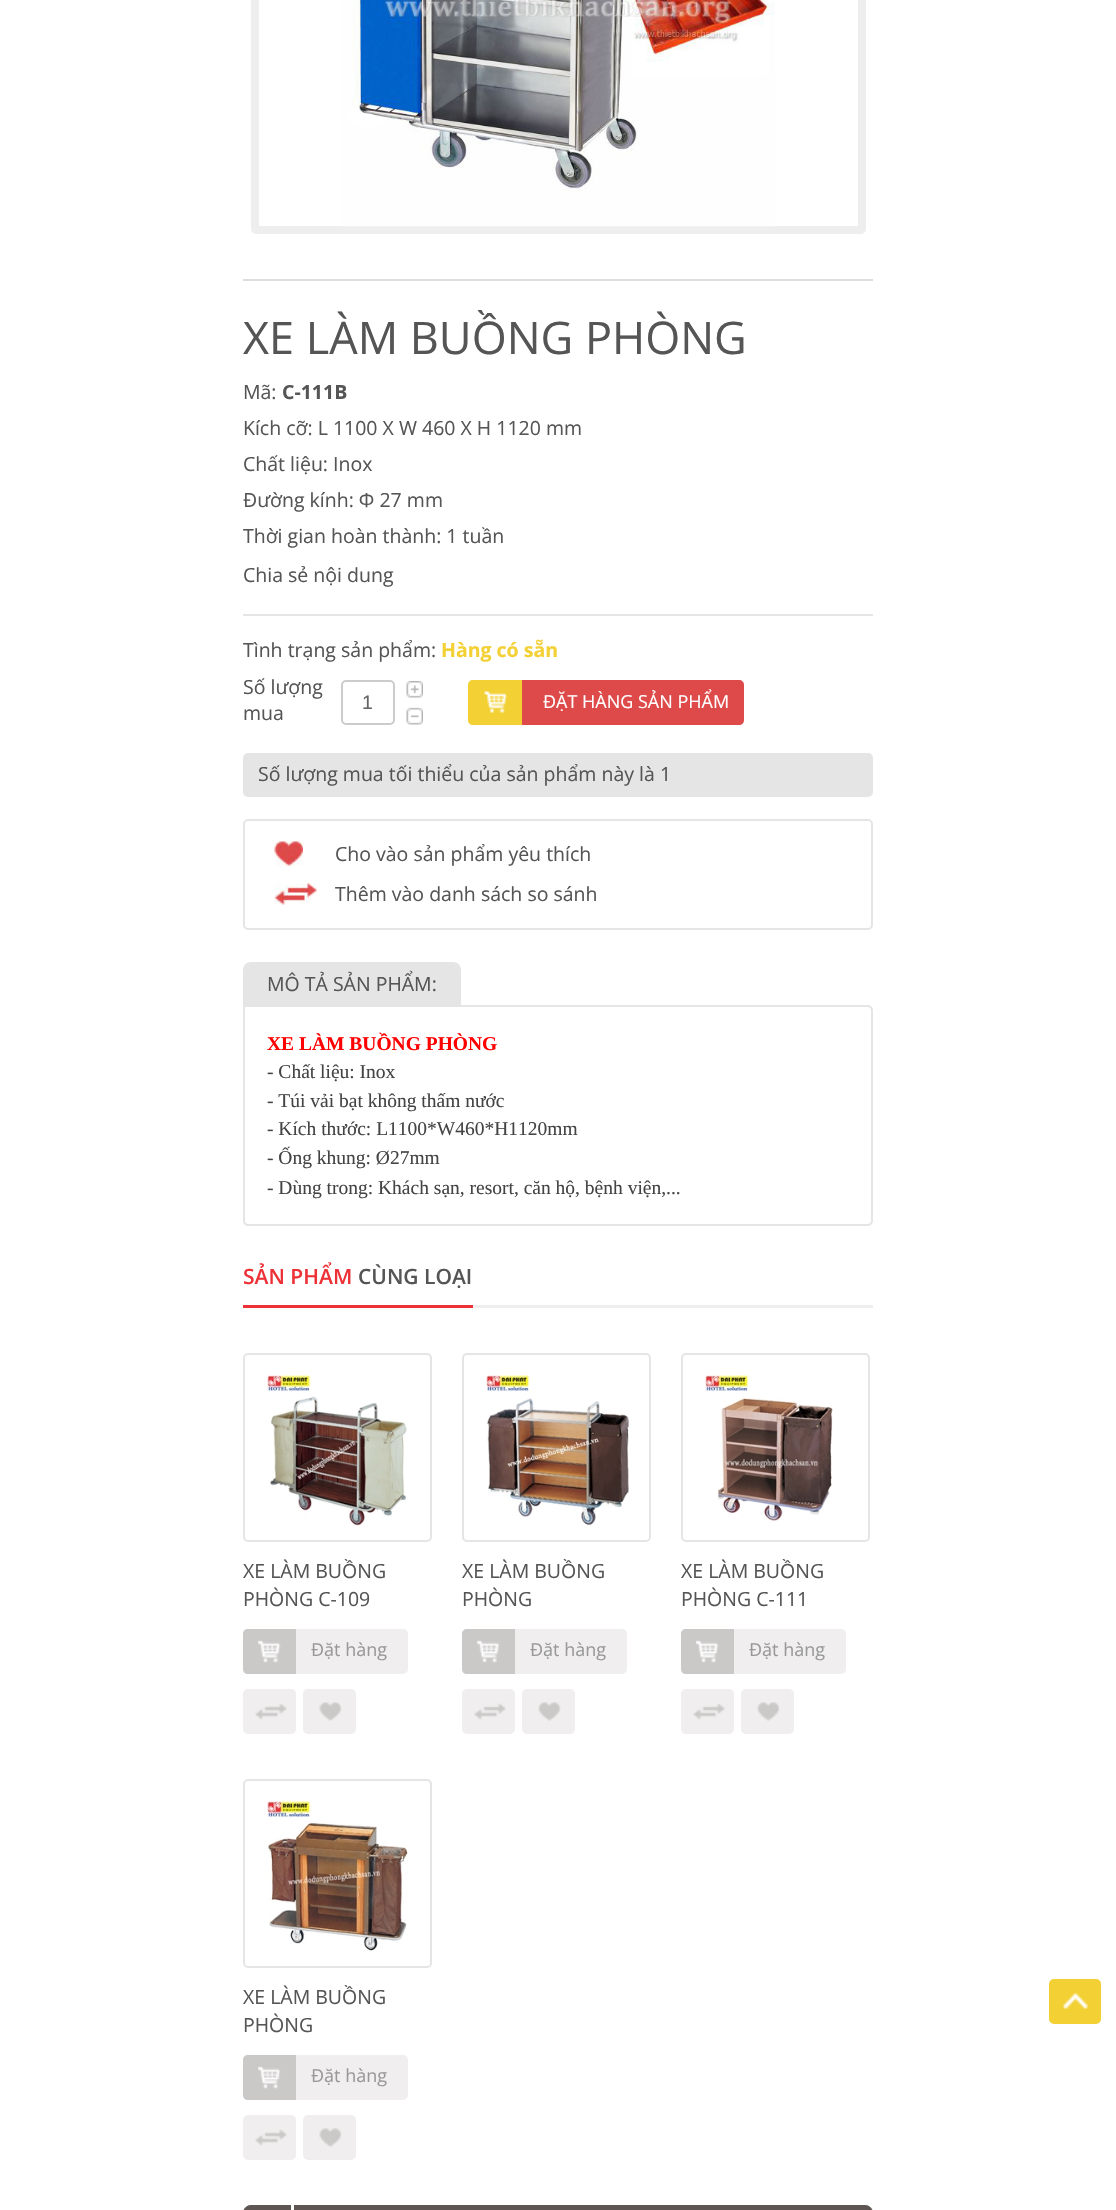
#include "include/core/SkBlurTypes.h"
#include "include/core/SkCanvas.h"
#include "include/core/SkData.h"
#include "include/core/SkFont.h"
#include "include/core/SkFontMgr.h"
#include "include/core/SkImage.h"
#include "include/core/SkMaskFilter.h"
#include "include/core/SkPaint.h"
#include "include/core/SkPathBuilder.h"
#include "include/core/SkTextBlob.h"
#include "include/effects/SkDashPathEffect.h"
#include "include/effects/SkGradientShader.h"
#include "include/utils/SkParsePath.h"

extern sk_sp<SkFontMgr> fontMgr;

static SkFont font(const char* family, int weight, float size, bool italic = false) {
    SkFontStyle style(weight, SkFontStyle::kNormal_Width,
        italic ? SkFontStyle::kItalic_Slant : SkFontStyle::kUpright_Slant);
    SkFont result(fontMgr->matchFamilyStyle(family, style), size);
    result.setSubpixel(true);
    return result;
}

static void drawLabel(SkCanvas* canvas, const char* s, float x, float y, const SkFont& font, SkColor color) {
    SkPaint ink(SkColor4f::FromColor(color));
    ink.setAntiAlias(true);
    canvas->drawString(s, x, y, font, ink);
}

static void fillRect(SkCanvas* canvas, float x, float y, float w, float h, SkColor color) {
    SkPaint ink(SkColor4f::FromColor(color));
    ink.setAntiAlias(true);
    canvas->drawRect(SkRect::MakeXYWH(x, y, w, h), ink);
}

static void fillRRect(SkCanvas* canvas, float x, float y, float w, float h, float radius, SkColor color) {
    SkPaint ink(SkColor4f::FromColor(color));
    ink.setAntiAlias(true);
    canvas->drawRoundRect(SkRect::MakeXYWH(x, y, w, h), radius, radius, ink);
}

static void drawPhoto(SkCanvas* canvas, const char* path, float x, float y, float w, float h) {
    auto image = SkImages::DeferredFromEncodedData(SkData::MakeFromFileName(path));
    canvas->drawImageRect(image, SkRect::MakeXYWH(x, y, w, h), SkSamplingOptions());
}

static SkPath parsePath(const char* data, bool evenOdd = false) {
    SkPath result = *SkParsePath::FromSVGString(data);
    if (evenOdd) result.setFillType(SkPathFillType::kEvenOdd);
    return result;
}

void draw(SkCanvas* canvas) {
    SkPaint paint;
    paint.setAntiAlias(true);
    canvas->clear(0xFFFFFFFF);
    paint.setStroke(true);
    paint.setStrokeWidth(8);
    paint.setColor(0xFFEEEEEE);
    canvas->drawRoundRect(SkRect::MakeXYWH(255, -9, 607, 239), 1, 1, paint);
    drawPhoto(canvas, "assets/img1.png", 341, 0, 434, 227);
    fillRect(canvas, 243, 279, 630, 2, 0xFFDDDDDD);
    SkFont font1 = font("Open Sans", 400, 45);
    drawLabel(canvas, "XE LÀM BUỒNG PHÒNG", 243, 354, font1, 0xFF555555);
    SkFont font2 = font("Open Sans", 400, 19.5f);
    drawLabel(canvas, "Mã:", 243, 399, font2, 0xFF555555);
    SkFont font3 = font("Open Sans", 700, 19.5f);
    drawLabel(canvas, "C-111B", 282, 399, font3, 0xFF555555);
    drawLabel(canvas, "Kích cỡ: L 1100 X W 460 X H 1120 mm", 243, 435, font2, 0xFF555555);
    drawLabel(canvas, "Chất liệu: Inox", 243, 471, font2, 0xFF555555);
    drawLabel(canvas, "Đường kính: Φ 27 mm", 243, 507, font2, 0xFF555555);
    drawLabel(canvas, "Thời gian hoàn thành: 1 tuần", 243, 543, font2, 0xFF555555);
    drawLabel(canvas, "Chia sẻ nội dung", 243, 582, font2, 0xFF555555);
    fillRect(canvas, 243, 614, 630, 2, 0xFFE5E5E5);
    drawLabel(canvas, "Tình trạng sản phẩm:", 243, 657, font2, 0xFF555555);
    drawLabel(canvas, "Hàng có sẵn", 441, 657, font3, 0xFFF3D034);
    drawLabel(canvas, "Số lượng", 243, 694, font2, 0xFF555555);
    drawLabel(canvas, "mua", 243, 720, font2, 0xFF555555);
    drawPhoto(canvas, "assets/img2.png", 406, 681, 17, 17);
    paint.setStrokeWidth(2);
    paint.setColor(0xFFCCCCCC);
    canvas->drawRoundRect(SkRect::MakeXYWH(342, 681, 52, 43), 4, 4, paint);
    SkFont font4 = font("Liberation Sans", 400, 19.5f);
    drawLabel(canvas, "1", 362, 709, font4, 0xFF666666);
    drawPhoto(canvas, "assets/img3.png", 406, 707, 17, 18);
    paint.setStroke(false);
    paint.setColor(0xFFDE4A4A);
    canvas->drawPath(parsePath("M483 680H739C742 680 744 682 744 685V720C744 723 742 725 739 725H483C474.5 725 468 718.5 468 710V695C468 686.5 474.5 680 483 680Z"), paint);
    paint.setColor(0xFFF3D034);
    canvas->drawPath(parsePath("M473 680H522V725H473C470 725 468 723 468 720V685C468 682 470 680 473 680Z"), paint);
    drawPhoto(canvas, "assets/img4.png", 484, 691, 23, 22);
    SkFont font5 = font("Open Sans", 400, 18);
    drawLabel(canvas, "ĐẶT HÀNG SẢN PHẨM", 543, 708, font5, 0xFFFFFFFF);
    fillRRect(canvas, 243, 753, 630, 44, 5, 0xFFE5E5E5);
    drawLabel(canvas, "Số lượng mua tối thiểu của sản phẩm này là 1", 258, 781, font2, 0xFF555555);
    paint.setStroke(true);
    paint.setColor(0xFFE5E5E5);
    canvas->drawRoundRect(SkRect::MakeXYWH(244, 820, 628, 109), 4, 4, paint);
    drawPhoto(canvas, "assets/img5.png", 274, 841, 29, 25);
    drawLabel(canvas, "Cho vào sản phẩm yêu thích", 335, 861, font2, 0xFF555555);
    drawPhoto(canvas, "assets/img6.png", 274, 883, 43, 22);
    drawLabel(canvas, "Thêm vào danh sách so sánh", 335, 901, font2, 0xFF555555);
    canvas->drawPath(parsePath("M244 1006H868C870 1006 872 1008 872 1010V1221C872 1223 870 1225 868 1225H248C246 1225 244 1223 244 1221Z"), paint);
    paint.setStroke(false);
    canvas->drawPath(parsePath("M251 962H453C457.5 962 461 965.5 461 970V1007H243V970C243 965.5 246.5 962 251 962Z"), paint);
    drawLabel(canvas, "MÔ TẢ SẢN PHẨM:", 267, 991, font2, 0xFF555555);
    SkFont font6 = font("Liberation Serif", 700, 19.5f);
    drawLabel(canvas, "XE LÀM BUỒNG PHÒNG", 267, 1050, font6, 0xFFFF0000);
    SkFont font7 = font("Liberation Serif", 400, 19.5f);
    drawLabel(canvas, "- Chất liệu: Inox", 267, 1078, font7, 0xFF444444);
    drawLabel(canvas, "- Túi vải bạt không thấm nước", 267, 1107, font7, 0xFF444444);
    drawLabel(canvas, "- Kích thước: L1100*W460*H1120mm", 267, 1135, font7, 0xFF444444);
    drawLabel(canvas, "- Ống khung: Ø27mm", 267, 1164, font7, 0xFF444444);
    drawLabel(canvas, "- Dùng trong: Khách sạn, resort, căn hộ, bệnh viện,...", 267, 1194, font7, 0xFF444444);
    fillRect(canvas, 473, 1305, 400, 3, 0xFFEEEEEE);
    fillRect(canvas, 243, 1305, 230, 3, 0xFFED3237);
    SkFont font8 = font("Open Sans", 600, 21);
    drawLabel(canvas, "SẢN PHẨM", 243, 1284, font8, 0xFFED3237);
    drawLabel(canvas, "CÙNG LOẠI", 358, 1284, font8, 0xFF555555);
    paint.setStroke(true);
    canvas->drawRoundRect(SkRect::MakeXYWH(244, 1354, 187, 187), 4, 4, paint);
    drawPhoto(canvas, "assets/img7.png", 267, 1375, 140, 151);
    drawLabel(canvas, "XE LÀM BUỒNG", 243, 1578, font2, 0xFF555555);
    drawLabel(canvas, "PHÒNG C-109", 243, 1606, font2, 0xFF555555);
    fillRRect(canvas, 243, 1629, 165, 45, 5, 0xFFF0EEEE);
    paint.setStroke(false);
    paint.setColor(0xFFCBC8C8);
    canvas->drawPath(parsePath("M248 1629H296V1674H248C245 1674 243 1672 243 1669V1634C243 1631 245 1629 248 1629Z"), paint);
    drawPhoto(canvas, "assets/img8.png", 258, 1640, 23, 23);
    drawLabel(canvas, "Đặt hàng", 311, 1656, font5, 0xFF999999);
    fillRRect(canvas, 243, 1689, 53, 45, 5, 0xFFF0EEEE);
    drawPhoto(canvas, "assets/img9.png", 255, 1703, 32, 17);
    fillRRect(canvas, 303, 1689, 53, 45, 5, 0xFFF0EEEE);
    drawPhoto(canvas, "assets/img10.png", 319, 1702, 23, 19);
    paint.setStroke(true);
    paint.setColor(0xFFE5E5E5);
    canvas->drawRoundRect(SkRect::MakeXYWH(463, 1354, 187, 187), 4, 4, paint);
    drawPhoto(canvas, "assets/img11.png", 486, 1375, 143, 150);
    drawLabel(canvas, "XE LÀM BUỒNG", 462, 1578, font2, 0xFF555555);
    drawLabel(canvas, "PHÒNG", 462, 1606, font2, 0xFF555555);
    fillRRect(canvas, 462, 1629, 165, 45, 5, 0xFFF0EEEE);
    paint.setStroke(false);
    paint.setColor(0xFFCBC8C8);
    canvas->drawPath(parsePath("M467 1629H515V1674H467C464 1674 462 1672 462 1669V1634C462 1631 464 1629 467 1629Z"), paint);
    drawPhoto(canvas, "assets/img12.png", 477, 1640, 23, 23);
    drawLabel(canvas, "Đặt hàng", 530, 1656, font5, 0xFF999999);
    fillRRect(canvas, 462, 1689, 53, 45, 5, 0xFFF0EEEE);
    drawPhoto(canvas, "assets/img9.png", 474, 1703, 32, 17);
    fillRRect(canvas, 522, 1689, 53, 45, 5, 0xFFF0EEEE);
    drawPhoto(canvas, "assets/img13.png", 538, 1702, 23, 19);
    paint.setStroke(true);
    paint.setColor(0xFFE5E5E5);
    canvas->drawRoundRect(SkRect::MakeXYWH(682, 1354, 187, 187), 4, 4, paint);
    drawPhoto(canvas, "assets/img14.png", 705, 1375, 128, 146);
    drawLabel(canvas, "XE LÀM BUỒNG", 681, 1578, font2, 0xFF555555);
    drawLabel(canvas, "PHÒNG C-111", 681, 1606, font2, 0xFF555555);
    fillRRect(canvas, 681, 1629, 165, 45, 5, 0xFFF0EEEE);
    paint.setStroke(false);
    paint.setColor(0xFFCBC8C8);
    canvas->drawPath(parsePath("M686 1629H734V1674H686C683 1674 681 1672 681 1669V1634C681 1631 683 1629 686 1629Z"), paint);
    drawPhoto(canvas, "assets/img15.png", 696, 1640, 23, 23);
    drawLabel(canvas, "Đặt hàng", 749, 1656, font5, 0xFF999999);
    fillRRect(canvas, 681, 1689, 53, 45, 5, 0xFFF0EEEE);
    drawPhoto(canvas, "assets/img16.png", 693, 1703, 32, 17);
    fillRRect(canvas, 741, 1689, 53, 45, 5, 0xFFF0EEEE);
    drawPhoto(canvas, "assets/img13.png", 757, 1702, 23, 19);
    paint.setStroke(true);
    paint.setColor(0xFFE5E5E5);
    canvas->drawRoundRect(SkRect::MakeXYWH(244, 1780, 187, 187), 4, 4, paint);
    drawPhoto(canvas, "assets/img17.png", 267, 1801, 141, 150);
    drawLabel(canvas, "XE LÀM BUỒNG", 243, 2004, font2, 0xFF555555);
    drawLabel(canvas, "PHÒNG", 243, 2032, font2, 0xFF555555);
    fillRRect(canvas, 243, 2055, 165, 45, 5, 0xFFF0EEEE);
    paint.setStroke(false);
    paint.setColor(0xFFCBC8C8);
    canvas->drawPath(parsePath("M248 2055H296V2100H248C245 2100 243 2098 243 2095V2060C243 2057 245 2055 248 2055Z"), paint);
    drawPhoto(canvas, "assets/img8.png", 258, 2066, 23, 23);
    drawLabel(canvas, "Đặt hàng", 311, 2082, font5, 0xFF999999);
    fillRRect(canvas, 243, 2115, 53, 45, 5, 0xFFF0EEEE);
    drawPhoto(canvas, "assets/img9.png", 255, 2129, 32, 17);
    fillRRect(canvas, 303, 2115, 53, 45, 5, 0xFFF0EEEE);
    drawPhoto(canvas, "assets/img10.png", 319, 2128, 23, 19);
    paint.setColor(0xFF5E5652);
    canvas->drawPath(parsePath("M251 2205H865C869.5 2205 873 2208.5 873 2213V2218H243V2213C243 2208.5 246.5 2205 251 2205Z"), paint);
    fillRect(canvas, 291, 2205, 3, 5, 0xFFFFFFFF);
    fillRRect(canvas, 1049, 1979, 52, 45, 5, 0xFFF3D034);
    drawPhoto(canvas, "assets/img18.png", 1063, 1993, 25, 16);
}
